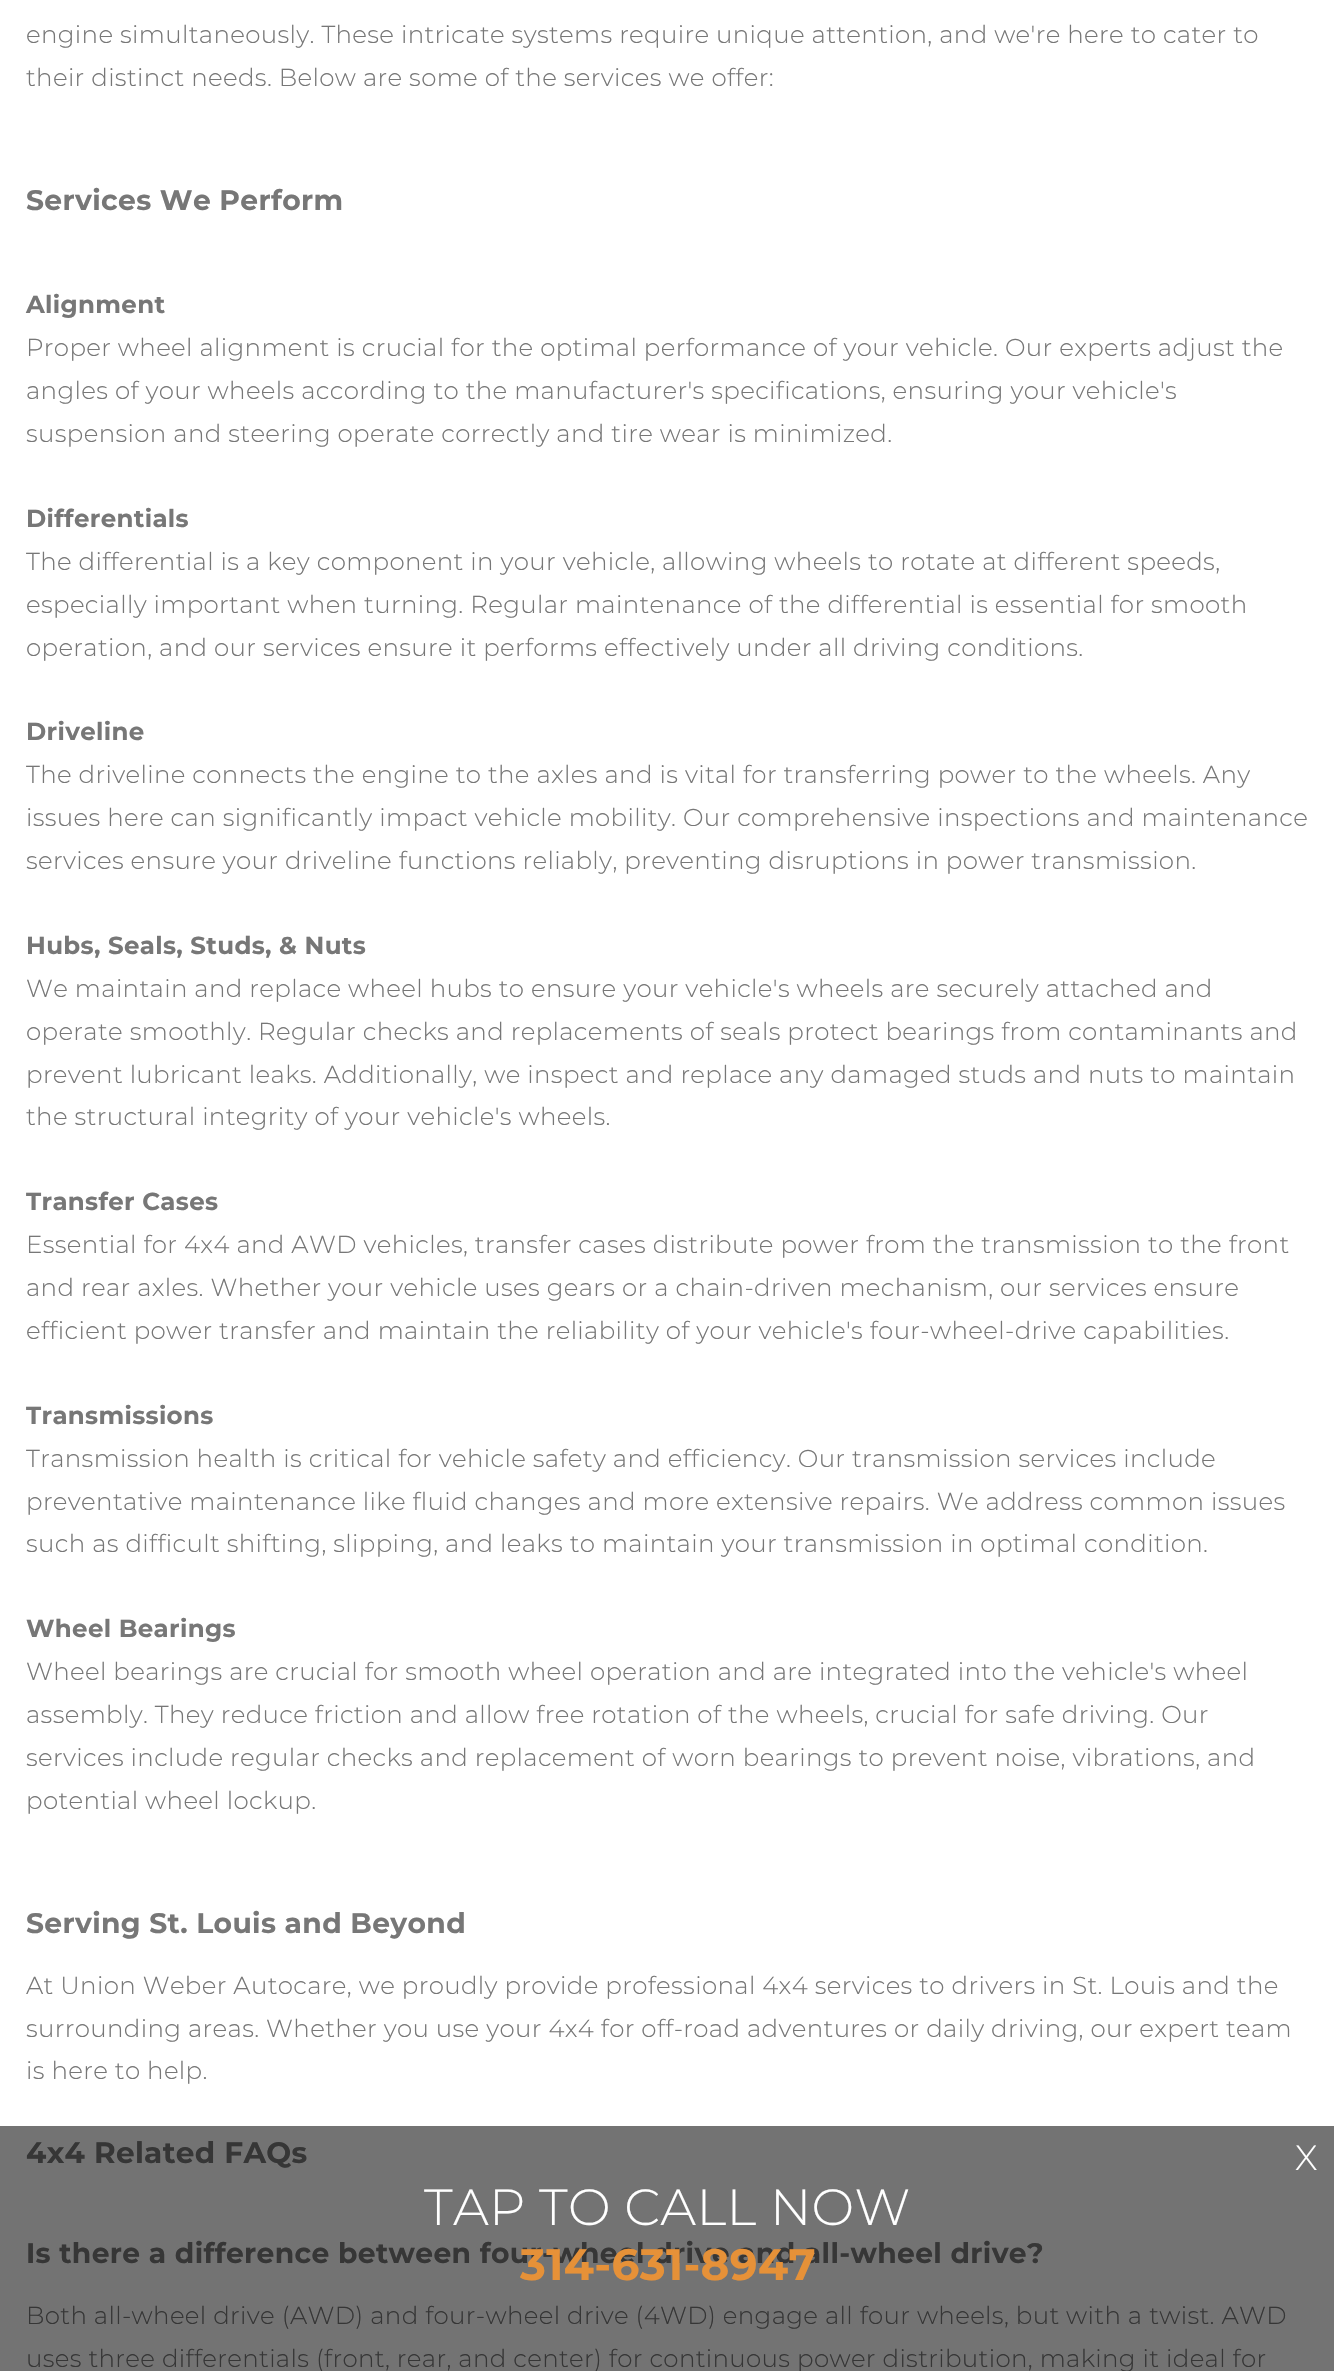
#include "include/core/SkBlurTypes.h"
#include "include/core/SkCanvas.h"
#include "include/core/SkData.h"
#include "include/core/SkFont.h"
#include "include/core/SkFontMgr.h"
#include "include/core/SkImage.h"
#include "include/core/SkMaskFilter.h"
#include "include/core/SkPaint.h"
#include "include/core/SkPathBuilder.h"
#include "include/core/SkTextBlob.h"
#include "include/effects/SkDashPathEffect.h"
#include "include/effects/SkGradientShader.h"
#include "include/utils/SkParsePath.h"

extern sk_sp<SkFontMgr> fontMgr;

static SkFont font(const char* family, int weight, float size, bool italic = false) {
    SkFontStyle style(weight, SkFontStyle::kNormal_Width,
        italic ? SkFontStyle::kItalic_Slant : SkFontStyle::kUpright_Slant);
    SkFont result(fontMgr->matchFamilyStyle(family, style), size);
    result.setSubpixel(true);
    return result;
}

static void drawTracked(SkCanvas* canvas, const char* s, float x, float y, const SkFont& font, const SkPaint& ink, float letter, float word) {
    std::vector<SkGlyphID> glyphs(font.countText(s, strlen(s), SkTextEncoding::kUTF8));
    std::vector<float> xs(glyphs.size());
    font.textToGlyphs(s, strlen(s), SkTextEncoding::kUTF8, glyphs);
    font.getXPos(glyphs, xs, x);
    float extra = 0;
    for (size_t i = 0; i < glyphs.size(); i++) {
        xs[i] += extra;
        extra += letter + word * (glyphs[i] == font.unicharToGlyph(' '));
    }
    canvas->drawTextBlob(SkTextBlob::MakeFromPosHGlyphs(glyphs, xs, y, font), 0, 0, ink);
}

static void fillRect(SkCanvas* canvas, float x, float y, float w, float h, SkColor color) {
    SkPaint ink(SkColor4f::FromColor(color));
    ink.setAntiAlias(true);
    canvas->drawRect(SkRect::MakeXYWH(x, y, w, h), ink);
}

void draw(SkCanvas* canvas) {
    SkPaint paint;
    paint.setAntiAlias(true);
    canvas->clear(0xFFFFFFFF);
    fillRect(canvas, 0, 2126, 1334, 245, 0xFF737373);
    SkFont font1 = font("Montserrat", 300, 24.5f);
    paint.setColor(0xFF777777);
    drawTracked(canvas, "engine simultaneously. These intricate systems require unique attention, and we're here to cater to", 26, 43, font1, paint, 0.34f, 0);
    drawTracked(canvas, "their distinct needs. Below are some of the services we offer:", 26, 86, font1, paint, 0.34f, 0);
    SkFont font2 = font("Montserrat", 700, 28.2f);
    drawTracked(canvas, "Services We Perform", 26, 210, font2, paint, 0.34f, 0);
    SkFont font3 = font("Montserrat", 700, 24.5f);
    drawTracked(canvas, "Alignment", 26, 313, font3, paint, 0.34f, 0);
    drawTracked(canvas, "Proper wheel alignment is crucial for the optimal performance of your vehicle. Our experts adjust the", 26, 356, font1, paint, 0.34f, 0);
    drawTracked(canvas, "angles of your wheels according to the manufacturer's specifications, ensuring your vehicle's", 26, 399, font1, paint, 0.34f, 0);
    drawTracked(canvas, "suspension and steering operate correctly and tire wear is minimized.", 26, 442, font1, paint, 0.34f, 0);
    drawTracked(canvas, "Differentials", 26, 527, font3, paint, 0.34f, 0);
    drawTracked(canvas, "The differential is a key component in your vehicle, allowing wheels to rotate at different speeds,", 26, 570, font1, paint, 0.34f, 0);
    drawTracked(canvas, "especially important when turning. Regular maintenance of the differential is essential for smooth", 26, 613, font1, paint, 0.34f, 0);
    drawTracked(canvas, "operation, and our services ensure it performs effectively under all driving conditions.", 26, 656, font1, paint, 0.34f, 0);
    drawTracked(canvas, "Driveline", 26, 740, font3, paint, 0.34f, 0);
    drawTracked(canvas, "The driveline connects the engine to the axles and is vital for transferring power to the wheels. Any", 26, 783, font1, paint, 0.34f, 0);
    drawTracked(canvas, "issues here can significantly impact vehicle mobility. Our comprehensive inspections and maintenance", 26, 826, font1, paint, 0.34f, 0);
    drawTracked(canvas, "services ensure your driveline functions reliably, preventing disruptions in power transmission.", 26, 869, font1, paint, 0.34f, 0);
    drawTracked(canvas, "Hubs, Seals, Studs, & Nuts", 26, 954, font3, paint, 0.34f, 0);
    drawTracked(canvas, "We maintain and replace wheel hubs to ensure your vehicle's wheels are securely attached and", 26, 997, font1, paint, 0.34f, 0);
    drawTracked(canvas, "operate smoothly. Regular checks and replacements of seals protect bearings from contaminants and", 26, 1040, font1, paint, 0.34f, 0);
    drawTracked(canvas, "prevent lubricant leaks. Additionally, we inspect and replace any damaged studs and nuts to maintain", 26, 1083, font1, paint, 0.34f, 0);
    drawTracked(canvas, "the structural integrity of your vehicle's wheels.", 26, 1125, font1, paint, 0.34f, 0);
    drawTracked(canvas, "Transfer Cases", 26, 1210, font3, paint, 0.34f, 0);
    drawTracked(canvas, "Essential for 4x4 and AWD vehicles, transfer cases distribute power from the transmission to the front", 26, 1253, font1, paint, 0.34f, 0);
    drawTracked(canvas, "and rear axles. Whether your vehicle uses gears or a chain-driven mechanism, our services ensure", 26, 1296, font1, paint, 0.34f, 0);
    drawTracked(canvas, "efficient power transfer and maintain the reliability of your vehicle's four-wheel-drive capabilities.", 26, 1339, font1, paint, 0.34f, 0);
    drawTracked(canvas, "Transmissions", 26, 1424, font3, paint, 0.34f, 0);
    drawTracked(canvas, "Transmission health is critical for vehicle safety and efficiency. Our transmission services include", 26, 1467, font1, paint, 0.34f, 0);
    drawTracked(canvas, "preventative maintenance like fluid changes and more extensive repairs. We address common issues", 26, 1510, font1, paint, 0.34f, 0);
    drawTracked(canvas, "such as difficult shifting, slipping, and leaks to maintain your transmission in optimal condition.", 26, 1552, font1, paint, 0.34f, 0);
    drawTracked(canvas, "Wheel Bearings", 26, 1637, font3, paint, 0.34f, 0);
    drawTracked(canvas, "Wheel bearings are crucial for smooth wheel operation and are integrated into the vehicle's wheel", 26, 1680, font1, paint, 0.34f, 0);
    drawTracked(canvas, "assembly. They reduce friction and allow free rotation of the wheels, crucial for safe driving. Our", 26, 1723, font1, paint, 0.34f, 0);
    drawTracked(canvas, "services include regular checks and replacement of worn bearings to prevent noise, vibrations, and", 26, 1766, font1, paint, 0.34f, 0);
    drawTracked(canvas, "potential wheel lockup.", 26, 1809, font1, paint, 0.34f, 0);
    drawTracked(canvas, "Serving St. Louis and Beyond", 26, 1933, font2, paint, 0.34f, 0);
    drawTracked(canvas, "At Union Weber Autocare, we proudly provide professional 4x4 services to drivers in St. Louis and the", 26, 1994, font1, paint, 0.34f, 0);
    drawTracked(canvas, "surrounding areas. Whether you use your 4x4 for off-road adventures or daily driving, our expert team", 26, 2037, font1, paint, 0.34f, 0);
    drawTracked(canvas, "is here to help.", 26, 2079, font1, paint, 0.34f, 0);
    SkFont font4 = font("Montserrat", 700, 29.5f);
    paint.setColor(0xFF363636);
    drawTracked(canvas, "4x4 Related FAQs", 26, 2163, font4, paint, 0.34f, 0);
    drawTracked(canvas, "Is there a difference between four-wheel drive and all-wheel drive?", 26, 2263, font2, paint, 0.34f, 0);
    drawTracked(canvas, "Both all-wheel drive (AWD) and four-wheel drive (4WD) engage all four wheels, but with a twist. AWD", 26, 2324, font1, paint, 0.34f, 0);
    drawTracked(canvas, "uses three differentials (front, rear, and center) for continuous power distribution, making it ideal for", 26, 2367, font1, paint, 0.34f, 0);
    SkFont font5 = font("Montserrat", 300, 35);
    paint.setColor(0xFFFFFFFF);
    drawTracked(canvas, "X", 1295, 2170, font5, paint, 0.34f, 0);
    SkFont font6 = font("Montserrat", 300, 50.75f);
    drawTracked(canvas, "TAP TO CALL NOW", 424, 2225, font6, paint, 0.34f, 0);
    SkFont font7 = font("Montserrat", 700, 43.75f);
    paint.setColor(0xFFE69138);
    drawTracked(canvas, "314-631-8947", 520, 2280, font7, paint, 0.34f, 0);
}
